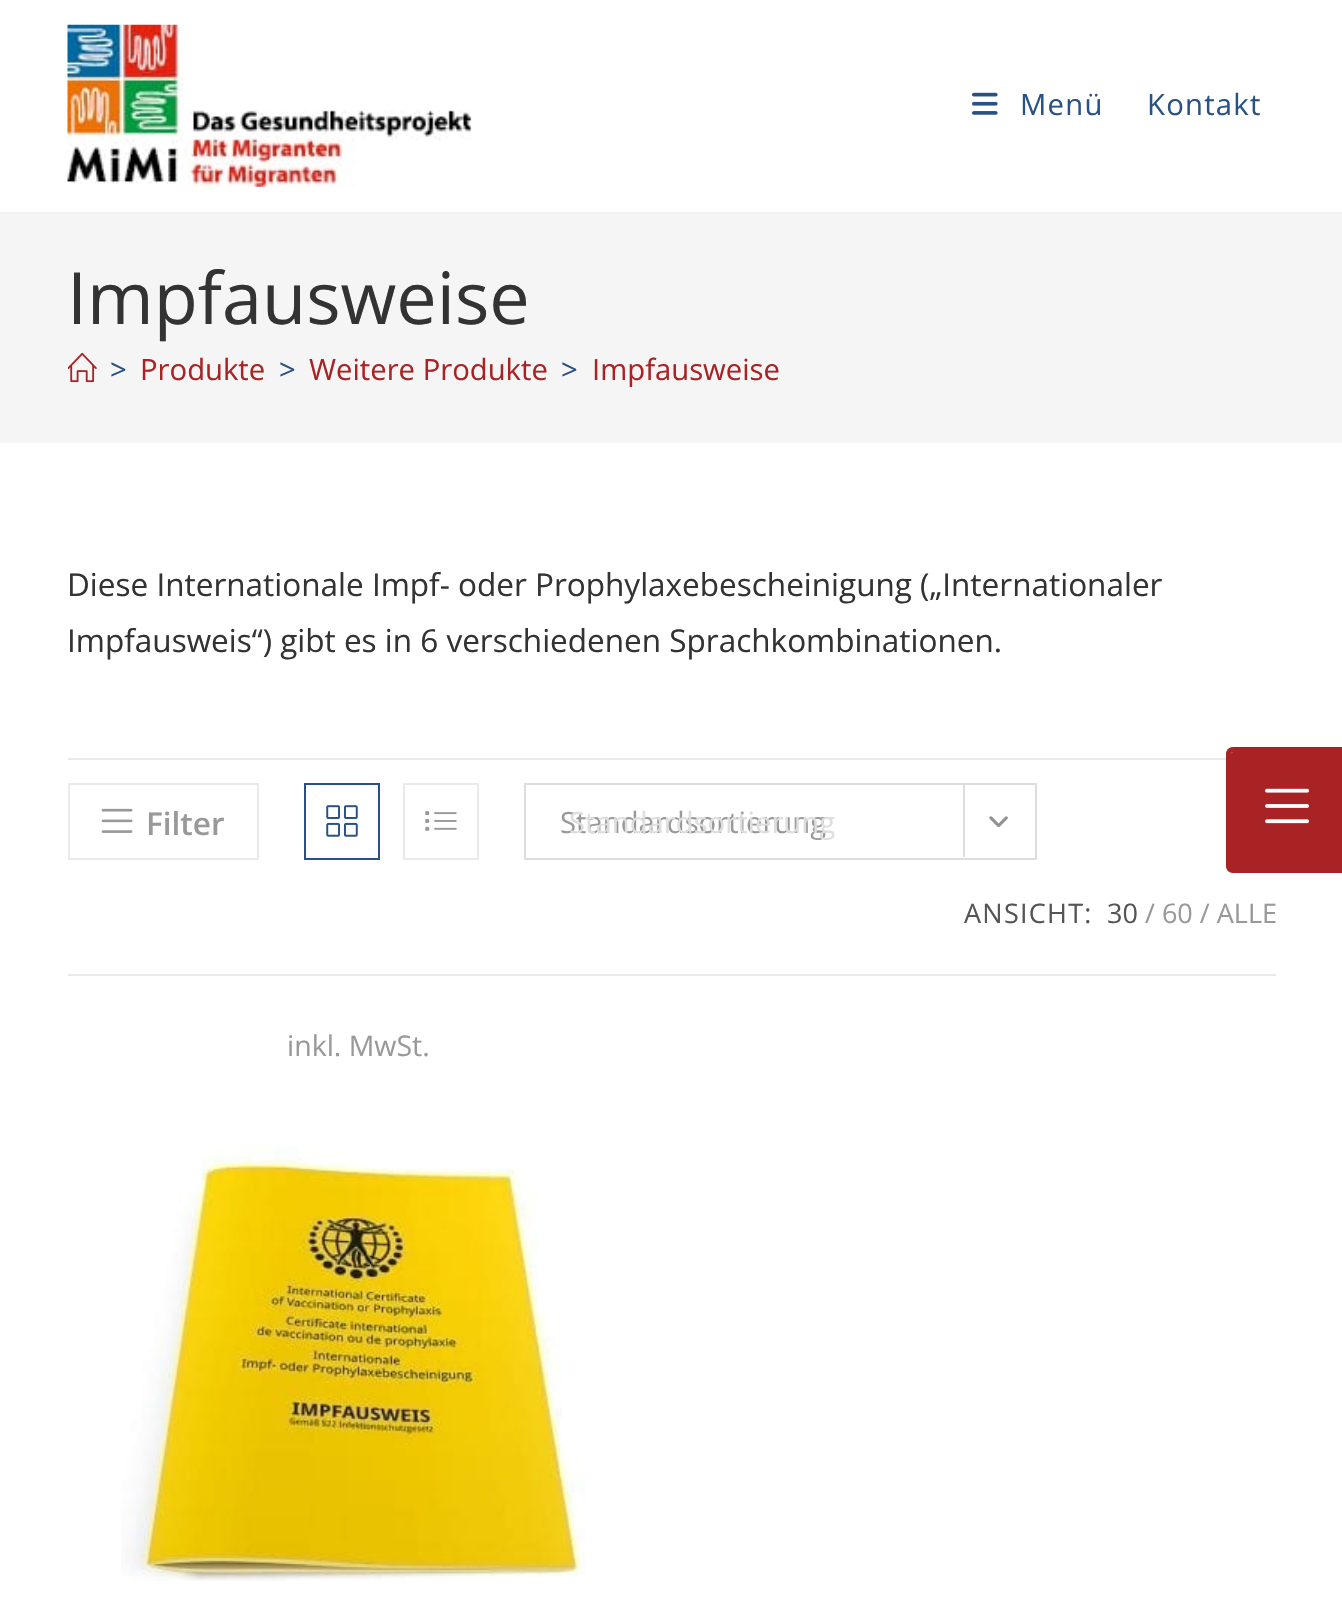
#include "include/core/SkBlurTypes.h"
#include "include/core/SkCanvas.h"
#include "include/core/SkData.h"
#include "include/core/SkFont.h"
#include "include/core/SkFontMgr.h"
#include "include/core/SkImage.h"
#include "include/core/SkMaskFilter.h"
#include "include/core/SkPaint.h"
#include "include/core/SkPathBuilder.h"
#include "include/core/SkTextBlob.h"
#include "include/effects/SkDashPathEffect.h"
#include "include/effects/SkGradientShader.h"
#include "include/utils/SkParsePath.h"

extern sk_sp<SkFontMgr> fontMgr;

static SkFont font(const char* family, int weight, float size, bool italic = false) {
    SkFontStyle style(weight, SkFontStyle::kNormal_Width,
        italic ? SkFontStyle::kItalic_Slant : SkFontStyle::kUpright_Slant);
    SkFont result(fontMgr->matchFamilyStyle(family, style), size);
    result.setSubpixel(true);
    return result;
}

static void drawLabel(SkCanvas* canvas, const char* s, float x, float y, const SkFont& font, SkColor color) {
    SkPaint ink(SkColor4f::FromColor(color));
    ink.setAntiAlias(true);
    canvas->drawString(s, x, y, font, ink);
}

static void drawTracked(SkCanvas* canvas, const char* s, float x, float y, const SkFont& font, const SkPaint& ink, float letter, float word) {
    std::vector<SkGlyphID> glyphs(font.countText(s, strlen(s), SkTextEncoding::kUTF8));
    std::vector<float> xs(glyphs.size());
    font.textToGlyphs(s, strlen(s), SkTextEncoding::kUTF8, glyphs);
    font.getXPos(glyphs, xs, x);
    float extra = 0;
    for (size_t i = 0; i < glyphs.size(); i++) {
        xs[i] += extra;
        extra += letter + word * (glyphs[i] == font.unicharToGlyph(' '));
    }
    canvas->drawTextBlob(SkTextBlob::MakeFromPosHGlyphs(glyphs, xs, y, font), 0, 0, ink);
}

static void fillRect(SkCanvas* canvas, float x, float y, float w, float h, SkColor color) {
    SkPaint ink(SkColor4f::FromColor(color));
    ink.setAntiAlias(true);
    canvas->drawRect(SkRect::MakeXYWH(x, y, w, h), ink);
}

static void drawPhoto(SkCanvas* canvas, const char* path, float x, float y, float w, float h) {
    auto image = SkImages::DeferredFromEncodedData(SkData::MakeFromFileName(path));
    canvas->drawImageRect(image, SkRect::MakeXYWH(x, y, w, h), SkSamplingOptions());
}

static SkPath parsePath(const char* data, bool evenOdd = false) {
    SkPath result = *SkParsePath::FromSVGString(data);
    if (evenOdd) result.setFillType(SkPathFillType::kEvenOdd);
    return result;
}

void draw(SkCanvas* canvas) {
    SkPaint paint;
    paint.setAntiAlias(true);
    canvas->clear(0xFFFFFFFF);
    fillRect(canvas, 0, 212, 1342, 2, 0xFFF1F1F1);
    drawPhoto(canvas, "assets/img1.png", 67, 24, 405, 163);
    drawPhoto(canvas, "assets/img2.png", 972, 92, 26, 23);
    SkFont font1 = font("Open Sans", 400, 29.25f);
    paint.setColor(0xFF295185);
    drawTracked(canvas, "Menü", 1020, 115, font1, paint, 1.25f, 0);
    drawTracked(canvas, "Kontakt", 1147, 115, font1, paint, 1.25f, 0);
    fillRect(canvas, 0, 214, 1342, 229, 0xFFF5F5F5);
    SkFont font2 = font("Open Sans", 400, 72);
    drawLabel(canvas, "Impfausweise", 67, 324, font2, 0xFF333333);
    drawPhoto(canvas, "assets/img3.png", 68, 352, 29, 31);
    drawLabel(canvas, ">", 110, 380, font1, 0xFF295185);
    drawLabel(canvas, "Produkte", 140, 380, font1, 0xFFA92325);
    drawLabel(canvas, ">", 279, 380, font1, 0xFF295185);
    drawLabel(canvas, "Weitere Produkte", 309, 380, font1, 0xFFA92325);
    drawLabel(canvas, ">", 561, 380, font1, 0xFF295185);
    drawLabel(canvas, "Impfausweise", 592, 380, font1, 0xFFA92325);
    SkFont font3 = font("Open Sans", 400, 31.5f);
    drawLabel(canvas, "Diese Internationale Impf- oder Prophylaxebescheinigung („Internationaler", 67, 596, font3, 0xFF333333);
    drawLabel(canvas, "Impfausweis“) gibt es in 6 verschiedenen Sprachkombinationen.", 67, 652, font3, 0xFF333333);
    fillRect(canvas, 68, 758, 1158, 2, 0xFFEAEAEA);
    fillRect(canvas, 68, 974, 1208, 2, 0xFFEAEAEA);
    paint.setStroke(true);
    paint.setStrokeWidth(2);
    paint.setColor(0xFFEAEAEA);
    canvas->drawRect(SkRect::MakeXYWH(69, 784, 189, 75), paint);
    drawPhoto(canvas, "assets/img4.png", 101, 808, 32, 25);
    SkFont font4 = font("Open Sans", 600, 31.5f);
    drawLabel(canvas, "Filter", 146, 835, font4, 0xFF999999);
    paint.setColor(0xFF295185);
    canvas->drawRect(SkRect::MakeXYWH(305, 784, 74, 75), paint);
    drawPhoto(canvas, "assets/img5.png", 326, 805, 32, 32);
    paint.setColor(0xFFEAEAEA);
    canvas->drawRect(SkRect::MakeXYWH(404, 784, 74, 75), paint);
    drawPhoto(canvas, "assets/img6.png", 425, 811, 32, 20);
    paint.setColor(0xFFDDDDDD);
    canvas->drawRect(SkRect::MakeXYWH(525, 784, 511, 75), paint);
    drawLabel(canvas, "Standardsortierung", 560, 833, font1, 0xFF999999);
    fillRect(canvas, 963, 785, 2, 72, 0xFFDDDDDD);
    drawPhoto(canvas, "assets/img7.png", 989, 816, 19, 12);
    drawLabel(canvas, "Standardsortierung", 569, 833, font1, 0xFFDEDEDE);
    SkFont font5 = font("Open Sans", 400, 27);
    paint.setStroke(false);
    paint.setColor(0xFF555555);
    drawTracked(canvas, "ANSICHT:", 964, 923, font5, paint, 1.25f, 0);
    drawLabel(canvas, "30", 1107, 923, font5, 0xFF555555);
    drawLabel(canvas, "/ 60 / ALLE", 1145, 923, font5, 0xFF999999);
    SkFont font6 = font("Open Sans", 400, 28.5f);
    drawLabel(canvas, "inkl. MwSt.", 287, 1056, font6, 0xFF999999);
    drawPhoto(canvas, "assets/img8.png", 121, 1145, 465, 436);
    paint.setColor(0xFFA92325);
    canvas->drawPath(parsePath("M1233 752H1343V869H1233C1232 869 1231 868 1231 867V754C1231 753 1232 752 1233 752Z"), paint);
    canvas->drawPath(parsePath("M1233 747H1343V873H1233C1229 873 1226 870 1226 866V754C1226 750 1229 747 1233 747ZM1233 752H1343V868H1233C1232 868 1231 867 1231 866V754C1231 753 1232 752 1233 752Z", true), paint);
    drawPhoto(canvas, "assets/img9.png", 1265, 788, 44, 36);
}
